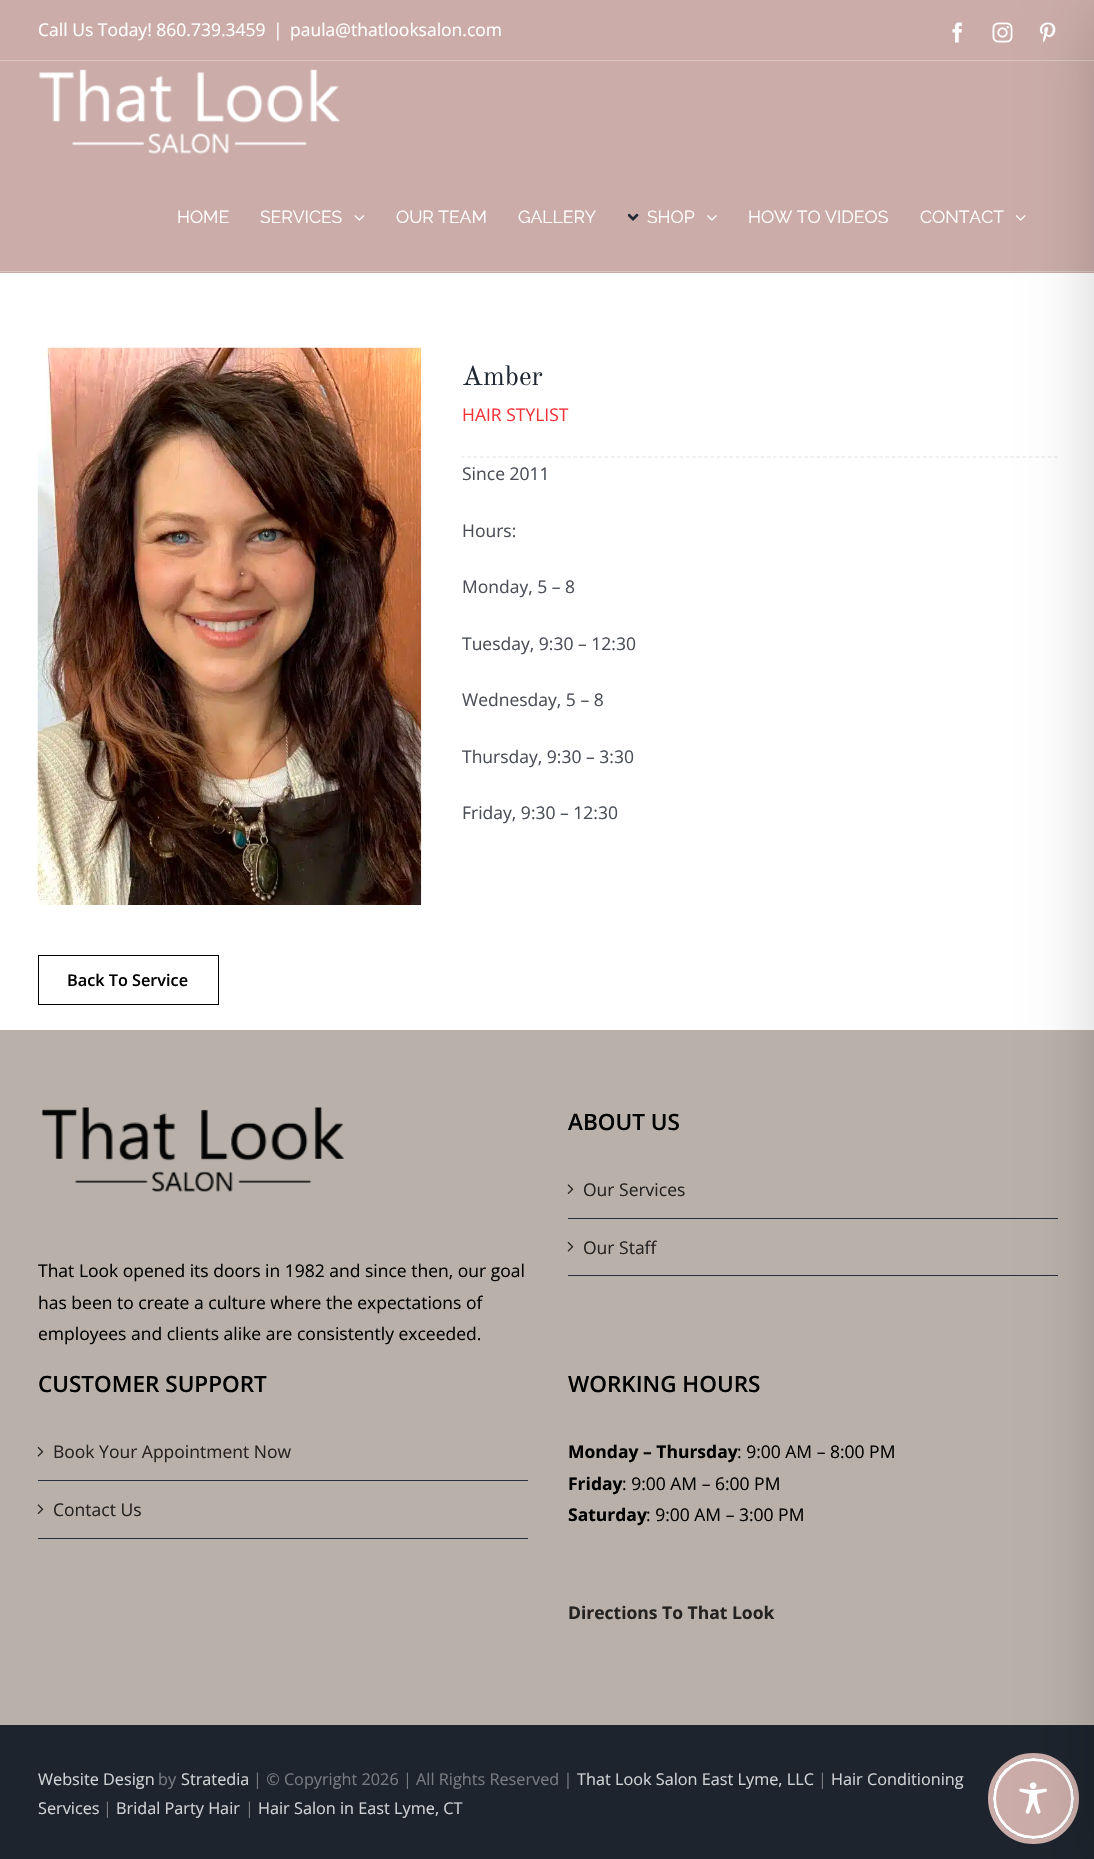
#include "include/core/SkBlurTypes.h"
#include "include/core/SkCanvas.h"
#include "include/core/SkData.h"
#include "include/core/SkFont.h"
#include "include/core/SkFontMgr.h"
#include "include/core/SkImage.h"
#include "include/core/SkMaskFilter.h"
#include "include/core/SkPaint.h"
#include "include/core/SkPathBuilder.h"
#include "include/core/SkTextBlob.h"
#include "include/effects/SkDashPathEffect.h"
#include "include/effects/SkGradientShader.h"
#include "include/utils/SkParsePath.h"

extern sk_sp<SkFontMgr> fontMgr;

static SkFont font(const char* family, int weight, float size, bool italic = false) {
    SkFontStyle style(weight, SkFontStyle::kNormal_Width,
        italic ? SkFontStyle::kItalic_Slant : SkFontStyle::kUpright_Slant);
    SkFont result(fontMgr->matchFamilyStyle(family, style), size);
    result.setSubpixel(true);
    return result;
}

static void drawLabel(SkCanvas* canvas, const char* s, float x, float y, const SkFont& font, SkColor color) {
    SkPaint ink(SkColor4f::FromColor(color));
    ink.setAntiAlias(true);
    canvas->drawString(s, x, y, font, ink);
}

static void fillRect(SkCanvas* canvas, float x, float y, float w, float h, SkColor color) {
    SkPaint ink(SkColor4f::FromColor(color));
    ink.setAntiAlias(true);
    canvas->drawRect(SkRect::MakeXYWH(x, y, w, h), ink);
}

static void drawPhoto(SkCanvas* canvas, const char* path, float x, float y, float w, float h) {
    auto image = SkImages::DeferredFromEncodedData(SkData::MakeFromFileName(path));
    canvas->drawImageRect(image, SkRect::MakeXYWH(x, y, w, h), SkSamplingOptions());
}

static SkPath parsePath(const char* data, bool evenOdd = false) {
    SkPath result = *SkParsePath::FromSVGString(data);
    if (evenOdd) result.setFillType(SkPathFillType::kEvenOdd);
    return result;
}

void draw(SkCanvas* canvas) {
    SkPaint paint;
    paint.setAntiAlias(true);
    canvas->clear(0xFFFFFFFF);
    fillRect(canvas, 0, 0, 1094, 60, 0xFFCBACA8);
    fillRect(canvas, 0, 60, 1094, 1, 0xFFDBC6C3);
    SkFont font1 = font("Open Sans", 400, 17.5f);
    drawLabel(canvas, "Call Us Today! 860.739.3459", 38, 36, font1, 0xFFFFFFFF);
    drawLabel(canvas, "|", 273, 36, font1, 0xFFFFFFFF);
    drawLabel(canvas, "paula@thatlooksalon.com", 290, 36, font1, 0xFFFFFFFF);
    drawPhoto(canvas, "assets/img1.png", 952, 22, 10, 21);
    drawPhoto(canvas, "assets/img2.png", 992, 22, 21, 21);
    drawPhoto(canvas, "assets/img3.png", 1039, 22, 17, 21);
    fillRect(canvas, 0, 61, 1094, 212, 0xFFCBACA8);
    fillRect(canvas, 0, 271, 1094, 1, 0xFFDBC6C3);
    drawPhoto(canvas, "assets/img4.png", 38, 69, 302, 85);
    SkFont font2 = font("Raleway", 100, 17.5f);
    drawLabel(canvas, "HOME", 177, 223, font2, 0xFFFFFFFF);
    drawLabel(canvas, "SERVICES", 260, 223, font2, 0xFFFFFFFF);
    drawPhoto(canvas, "assets/img5.png", 354, 215, 11, 6);
    drawLabel(canvas, "OUR TEAM", 396, 223, font2, 0xFFFFFFFF);
    drawLabel(canvas, "GALLERY", 518, 223, font2, 0xFFFFFFFF);
    drawPhoto(canvas, "assets/img6.png", 628, 213, 11, 8);
    drawLabel(canvas, "SHOP", 647, 223, font2, 0xFFFFFFFF);
    drawPhoto(canvas, "assets/img7.png", 707, 215, 10, 6);
    drawLabel(canvas, "HOW TO VIDEOS", 748, 223, font2, 0xFFFFFFFF);
    drawLabel(canvas, "CONTACT", 920, 223, font2, 0xFFFFFFFF);
    drawPhoto(canvas, "assets/img8.png", 1015, 215, 11, 6);
    SkFont font3 = font("Old Standard TT", 400, 27.5f);
    drawLabel(canvas, "Amber", 462, 385, font3, 0xFF212934);
    drawLabel(canvas, "HAIR STYLIST", 462, 421, font1, 0xFFF33337);
    paint.setStroke(true);
    paint.setStrokeWidth(1.2f);
    paint.setColor(0xFFE2E2E2);
    paint.setPathEffect(SkDashPathEffect::Make({{3.75f, 2.49f}}, 0));
    canvas->drawPath(parsePath("M461 457H1057.5"), paint);
    paint.setPathEffect(nullptr);
    drawLabel(canvas, "Since 2011", 462, 480, font1, 0xFF4A4E57);
    drawLabel(canvas, "Hours:", 462, 537, font1, 0xFF4A4E57);
    drawLabel(canvas, "Monday, 5 – 8", 462, 593, font1, 0xFF4A4E57);
    drawLabel(canvas, "Tuesday, 9:30 – 12:30", 462, 650, font1, 0xFF4A4E57);
    drawLabel(canvas, "Wednesday, 5 – 8", 462, 706, font1, 0xFF4A4E57);
    drawLabel(canvas, "Thursday, 9:30 – 3:30", 462, 763, font1, 0xFF4A4E57);
    drawLabel(canvas, "Friday, 9:30 – 12:30", 462, 819, font1, 0xFF4A4E57);
    drawPhoto(canvas, "assets/img9.png", 37, 347, 385, 558);
    paint.setStrokeWidth(1);
    paint.setColor(0xFF000000);
    canvas->drawRect(SkRect::MakeXYWH(38.5f, 955.5f, 180, 49), paint);
    SkFont font4 = font("Open Sans", 600, 16.25f);
    drawLabel(canvas, "Back To Service", 67, 986, font4, 0xFF000000);
    fillRect(canvas, 0, 1030, 1094, 695, 0xFFB9B1A9);
    SkFont font5 = font("Open Sans", 600, 22.5f);
    drawLabel(canvas, "ABOUT US", 568, 1130, font5, 0xFF000000);
    fillRect(canvas, 568, 1218, 490, 1, 0xFF26303E);
    drawPhoto(canvas, "assets/img10.png", 567, 1184, 7, 10);
    drawLabel(canvas, "Our Services", 583, 1196, font1, 0xFF252322);
    fillRect(canvas, 568, 1275, 490, 1, 0xFF26303E);
    drawPhoto(canvas, "assets/img11.png", 567, 1241, 7, 11);
    drawLabel(canvas, "Our Staff", 583, 1254, font1, 0xFF252322);
    drawPhoto(canvas, "assets/img12.png", 41, 1107, 304, 85);
    drawLabel(canvas, "That Look opened its doors in 1982 and since then, our goal", 38, 1277, font1, 0xFF000000);
    drawLabel(canvas, "has been to create a culture where the expectations of", 38, 1309, font1, 0xFF000000);
    drawLabel(canvas, "employees and clients alike are consistently exceeded.", 38, 1340, font1, 0xFF000000);
    drawLabel(canvas, "CUSTOMER SUPPORT", 38, 1392, font5, 0xFF000000);
    fillRect(canvas, 38, 1480, 490, 1, 0xFF26303E);
    drawPhoto(canvas, "assets/img11.png", 37, 1446, 7, 11);
    drawLabel(canvas, "Book Your Appointment Now", 53, 1458, font1, 0xFF252322);
    fillRect(canvas, 38, 1538, 490, 1, 0xFF26303E);
    drawPhoto(canvas, "assets/img10.png", 37, 1504, 7, 10);
    drawLabel(canvas, "Contact Us", 53, 1516, font1, 0xFF252322);
    drawLabel(canvas, "WORKING HOURS", 568, 1392, font5, 0xFF000000);
    SkFont font6 = font("Open Sans", 700, 17.5f);
    drawLabel(canvas, "Monday – Thursday", 568, 1458, font6, 0xFF000000);
    drawLabel(canvas, ": 9:00 AM – 8:00 PM", 737, 1458, font1, 0xFF000000);
    drawLabel(canvas, "Friday", 568, 1490, font6, 0xFF000000);
    drawLabel(canvas, ": 9:00 AM – 6:00 PM", 622, 1490, font1, 0xFF000000);
    drawLabel(canvas, "Saturday", 568, 1521, font6, 0xFF000000);
    drawLabel(canvas, ": 9:00 AM – 3:00 PM", 646, 1521, font1, 0xFF000000);
    drawLabel(canvas, "Directions To That Look", 568, 1619, font6, 0xFF252322);
    fillRect(canvas, 0, 1725, 1094, 134, 0xFF1D242D);
    SkFont font7 = font("Open Sans", 400, 16.25f);
    drawLabel(canvas, "Website Design", 38, 1785, font7, 0xFFD2D3D5);
    drawLabel(canvas, "by", 158, 1785, font7, 0xFF777C81);
    drawLabel(canvas, "Stratedia", 181, 1785, font7, 0xFFD2D3D5);
    drawLabel(canvas, "| © Copyright 2026 | All Rights Reserved |", 253, 1785, font7, 0xFF777C81);
    drawLabel(canvas, "That Look Salon East Lyme, LLC", 577, 1785, font7, 0xFFD2D3D5);
    drawLabel(canvas, "|", 818, 1785, font7, 0xFF777C81);
    drawLabel(canvas, "Hair Conditioning", 831, 1785, font7, 0xFFD2D3D5);
    drawLabel(canvas, "Services", 38, 1814, font7, 0xFFD2D3D5);
    drawLabel(canvas, "|", 103, 1814, font7, 0xFF777C81);
    drawLabel(canvas, "Bridal Party Hair", 116, 1814, font7, 0xFFD2D3D5);
    drawLabel(canvas, "|", 245, 1814, font7, 0xFF777C81);
    drawLabel(canvas, "Hair Salon in East Lyme, CT", 258, 1814, font7, 0xFFD2D3D5);
    drawPhoto(canvas, "assets/img13.png", 998, 1768, 9, 10);
    paint.setStrokeWidth(5);
    paint.setColor(0xFFCBACA8);
    canvas->drawCircle(1033.5f, 1798.5f, 43, paint);
    paint.setStroke(false);
    canvas->drawCircle(1033.5f, 1798.5f, 39, paint);
    paint.setStroke(true);
    paint.setStrokeWidth(3);
    paint.setColor(0xFFFFFFFF);
    canvas->drawCircle(1033.5f, 1798.5f, 39, paint);
    drawPhoto(canvas, "assets/img14.png", 1019, 1782, 28, 32);
    paint.setStroke(false);
    paint.setColor(0x33000000);
    paint.setMaskFilter(SkMaskFilter::MakeBlur(kNormal_SkBlurStyle, 37.5f));
    canvas->drawRect(SkRect::MakeXYWH(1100, 13, 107, 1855), paint);
    paint.setMaskFilter(nullptr);
}
